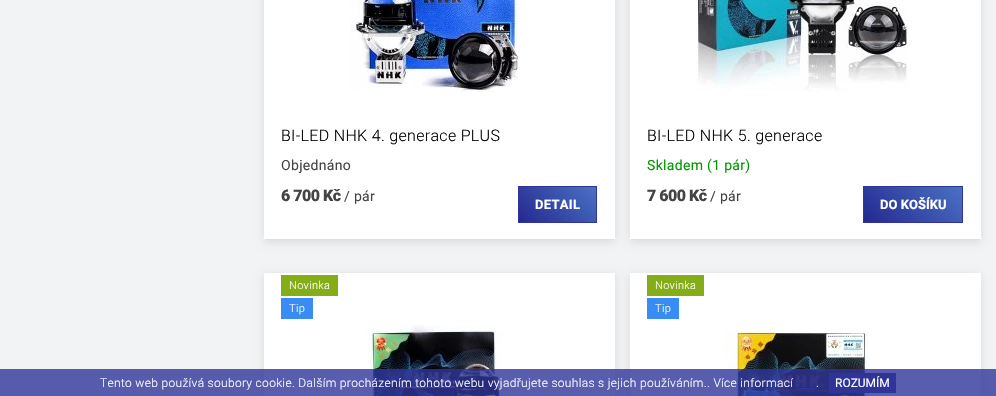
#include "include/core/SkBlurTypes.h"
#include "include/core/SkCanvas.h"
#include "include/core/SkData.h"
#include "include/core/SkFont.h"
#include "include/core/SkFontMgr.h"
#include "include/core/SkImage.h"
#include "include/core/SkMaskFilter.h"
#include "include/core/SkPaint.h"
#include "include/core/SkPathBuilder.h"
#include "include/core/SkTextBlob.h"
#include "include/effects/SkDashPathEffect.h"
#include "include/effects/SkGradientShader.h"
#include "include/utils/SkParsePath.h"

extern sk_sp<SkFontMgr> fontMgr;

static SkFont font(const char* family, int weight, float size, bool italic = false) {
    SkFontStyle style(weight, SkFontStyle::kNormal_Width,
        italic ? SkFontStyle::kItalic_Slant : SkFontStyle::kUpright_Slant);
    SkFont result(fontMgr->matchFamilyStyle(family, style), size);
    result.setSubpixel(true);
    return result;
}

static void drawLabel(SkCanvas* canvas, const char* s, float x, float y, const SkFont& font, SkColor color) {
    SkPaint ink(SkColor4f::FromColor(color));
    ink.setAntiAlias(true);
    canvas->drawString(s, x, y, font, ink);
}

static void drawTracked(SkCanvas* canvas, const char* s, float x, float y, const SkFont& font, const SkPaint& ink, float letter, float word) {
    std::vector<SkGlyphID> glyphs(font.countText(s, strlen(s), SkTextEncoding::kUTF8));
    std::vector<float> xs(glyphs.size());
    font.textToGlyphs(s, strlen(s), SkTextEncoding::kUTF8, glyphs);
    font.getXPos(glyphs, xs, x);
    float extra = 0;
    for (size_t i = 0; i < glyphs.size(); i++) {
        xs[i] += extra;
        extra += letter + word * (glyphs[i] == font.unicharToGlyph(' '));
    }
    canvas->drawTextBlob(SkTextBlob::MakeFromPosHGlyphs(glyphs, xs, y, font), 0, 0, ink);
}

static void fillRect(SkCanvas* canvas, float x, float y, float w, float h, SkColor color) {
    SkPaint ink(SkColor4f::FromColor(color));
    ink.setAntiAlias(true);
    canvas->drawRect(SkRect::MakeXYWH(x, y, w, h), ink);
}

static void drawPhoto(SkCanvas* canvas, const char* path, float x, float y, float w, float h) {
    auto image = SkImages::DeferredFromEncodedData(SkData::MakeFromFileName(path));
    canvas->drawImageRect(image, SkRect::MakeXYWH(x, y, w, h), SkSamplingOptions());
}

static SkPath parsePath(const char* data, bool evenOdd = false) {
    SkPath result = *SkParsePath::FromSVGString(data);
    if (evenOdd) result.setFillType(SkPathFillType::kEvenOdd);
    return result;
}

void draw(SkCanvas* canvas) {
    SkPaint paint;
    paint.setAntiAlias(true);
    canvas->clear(0xFFF1F3F5);
    paint.setColor(0x1A000000);
    paint.setMaskFilter(SkMaskFilter::MakeBlur(kNormal_SkBlurStyle, 4));
    canvas->drawRect(SkRect::MakeXYWH(264, -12, 351, 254), paint);
    paint.setMaskFilter(nullptr);
    fillRect(canvas, 264, 0, 351, 240, 0xFFFFFFFF);
    paint.setColor(0xFFE0E0E0);
    canvas->drawPath(parsePath("M615 240H264L266 238H613Z"), paint);
    paint.setColor(0xFFFFFFFF);
    canvas->drawPath(parsePath("M264 240V-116L266-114V238Z"), paint);
    drawPhoto(canvas, "assets/img1.png", 350, 0, 169, 92);
    SkFont font1 = font("Roboto", 300, 16);
    paint.setColor(0xFF000000);
    drawTracked(canvas, "BI-LED NHK 4. generace PLUS", 281, 141, font1, paint, 0.32f, 0);
    SkFont font2 = font("Roboto", 400, 14);
    paint.setColor(0xFF444444);
    drawTracked(canvas, "Objednáno", 281, 170, font2, paint, 0.32f, 0);
    SkFont font3 = font("Roboto", 900, 16);
    drawTracked(canvas, "6 700 Kč", 281, 201, font3, paint, -0.5f, 0);
    drawTracked(canvas, "/ pár", 344, 201, font2, paint, 0.32f, 0);
    paint.setStroke(true);
    paint.setStrokeWidth(1);
    paint.setColor(0xFF303498);
    canvas->drawRect(SkRect::MakeXYWH(518.5f, 186.5f, 78, 36), paint);
    paint.setStroke(false);
    {
        const SkColor colors[] = {0xFF4A72C3, 0xFF242890};
        const float stops[] = {0, 1};
        const SkPoint ends[] = {{586, 177}, {530, 233}};
        paint.setShader(SkGradientShader::MakeLinear(ends, colors, stops, 2, SkTileMode::kClamp));
        paint.setAlpha(255);
    }
    canvas->drawRect(SkRect::MakeXYWH(519, 187, 77, 35), paint);
    SkFont font4 = font("Roboto", 700, 13);
    paint.setShader(nullptr);
    paint.setColor(0xFFFFFFFF);
    drawTracked(canvas, "DETAIL", 535, 209, font4, paint, 0.32f, 0);
    fillRect(canvas, 263, 238, 353, 1, 0xFFFFFFFF);
    paint.setColor(0x1A000000);
    paint.setMaskFilter(SkMaskFilter::MakeBlur(kNormal_SkBlurStyle, 4));
    canvas->drawRect(SkRect::MakeXYWH(630, -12, 351, 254), paint);
    paint.setMaskFilter(nullptr);
    fillRect(canvas, 630, 0, 351, 240, 0xFFFFFFFF);
    paint.setColor(0xFFE0E0E0);
    canvas->drawPath(parsePath("M981 240H630L632 238H979Z"), paint);
    paint.setColor(0xFFFFFFFF);
    canvas->drawPath(parsePath("M630 240V-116L632-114V238Z"), paint);
    drawPhoto(canvas, "assets/img2.png", 696, 0, 212, 92);
    paint.setColor(0xFF000000);
    drawTracked(canvas, "BI-LED NHK 5. generace", 647, 141, font1, paint, 0.32f, 0);
    paint.setColor(0xFF009901);
    drawTracked(canvas, "Skladem (1 pár)", 647, 170, font2, paint, 0.32f, 0);
    paint.setColor(0xFF444444);
    drawTracked(canvas, "7 600 Kč", 647, 201, font3, paint, -0.5f, 0);
    drawTracked(canvas, "/ pár", 710, 201, font2, paint, 0.32f, 0);
    paint.setStroke(true);
    paint.setColor(0xFF303498);
    canvas->drawRect(SkRect::MakeXYWH(863.5f, 186.5f, 99, 36), paint);
    paint.setStroke(false);
    {
        const SkColor colors[] = {0xFF4A72C3, 0xFF242890};
        const float stops[] = {0, 1};
        const SkPoint ends[] = {{946, 171}, {880, 238}};
        paint.setShader(SkGradientShader::MakeLinear(ends, colors, stops, 2, SkTileMode::kClamp));
        paint.setAlpha(255);
    }
    canvas->drawRect(SkRect::MakeXYWH(864, 187, 98, 35), paint);
    drawLabel(canvas, "DO KOŠÍKU", 880, 209, font4, 0xFFFFFFFF);
    fillRect(canvas, 629, 238, 353, 1, 0xFFFFFFFF);
    paint.setShader(nullptr);
    paint.setColor(0x1A000000);
    paint.setMaskFilter(SkMaskFilter::MakeBlur(kNormal_SkBlurStyle, 4));
    canvas->drawRect(SkRect::MakeXYWH(264, 275, 351, 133), paint);
    paint.setMaskFilter(nullptr);
    fillRect(canvas, 264, 273, 351, 123, 0xFFFFFFFF);
    fillRect(canvas, 281, 275, 57, 21, 0xFF85AD18);
    SkFont font5 = font("Roboto", 300, 11);
    paint.setColor(0xFFFFFFFF);
    drawTracked(canvas, "Novinka", 289, 289, font5, paint, 0.32f, 0);
    fillRect(canvas, 281, 298, 32, 21, 0xFF388CF3);
    drawTracked(canvas, "Tip", 289, 312, font5, paint, 0.32f, 0);
    drawPhoto(canvas, "assets/img3.png", 366, 325, 136, 71);
    paint.setColor(0x1A000000);
    paint.setMaskFilter(SkMaskFilter::MakeBlur(kNormal_SkBlurStyle, 4));
    canvas->drawRect(SkRect::MakeXYWH(630, 275, 351, 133), paint);
    paint.setMaskFilter(nullptr);
    fillRect(canvas, 630, 273, 351, 123, 0xFFFFFFFF);
    fillRect(canvas, 647, 275, 57, 21, 0xFF85AD18);
    paint.setColor(0xFFFFFFFF);
    drawTracked(canvas, "Novinka", 655, 289, font5, paint, 0.32f, 0);
    fillRect(canvas, 647, 298, 32, 21, 0xFF388CF3);
    drawTracked(canvas, "Tip", 655, 312, font5, paint, 0.32f, 0);
    drawPhoto(canvas, "assets/img4.png", 724, 330, 145, 66);
    fillRect(canvas, 0, 369, 996, 27, 0xCC303498);
    SkFont font6 = font("Roboto", 300, 12);
    drawTracked(canvas, "Tento web používá soubory cookie. Dalším procházením tohoto webu vyjadřujete souhlas s jejich používáním.. Více informací", 100, 387, font6, paint, 0.32f, 0);
    drawTracked(canvas, ".", 816, 387, font6, paint, 0.32f, 0);
    fillRect(canvas, 829, 373, 67, 20, 0xFF303498);
    SkFont font7 = font("Roboto", 400, 12);
    drawLabel(canvas, "ROZUMÍM", 835, 387, font7, 0xFFFFFFFF);
    fillRect(canvas, 796, 388, 20, 1, 0xFF303498);
}
